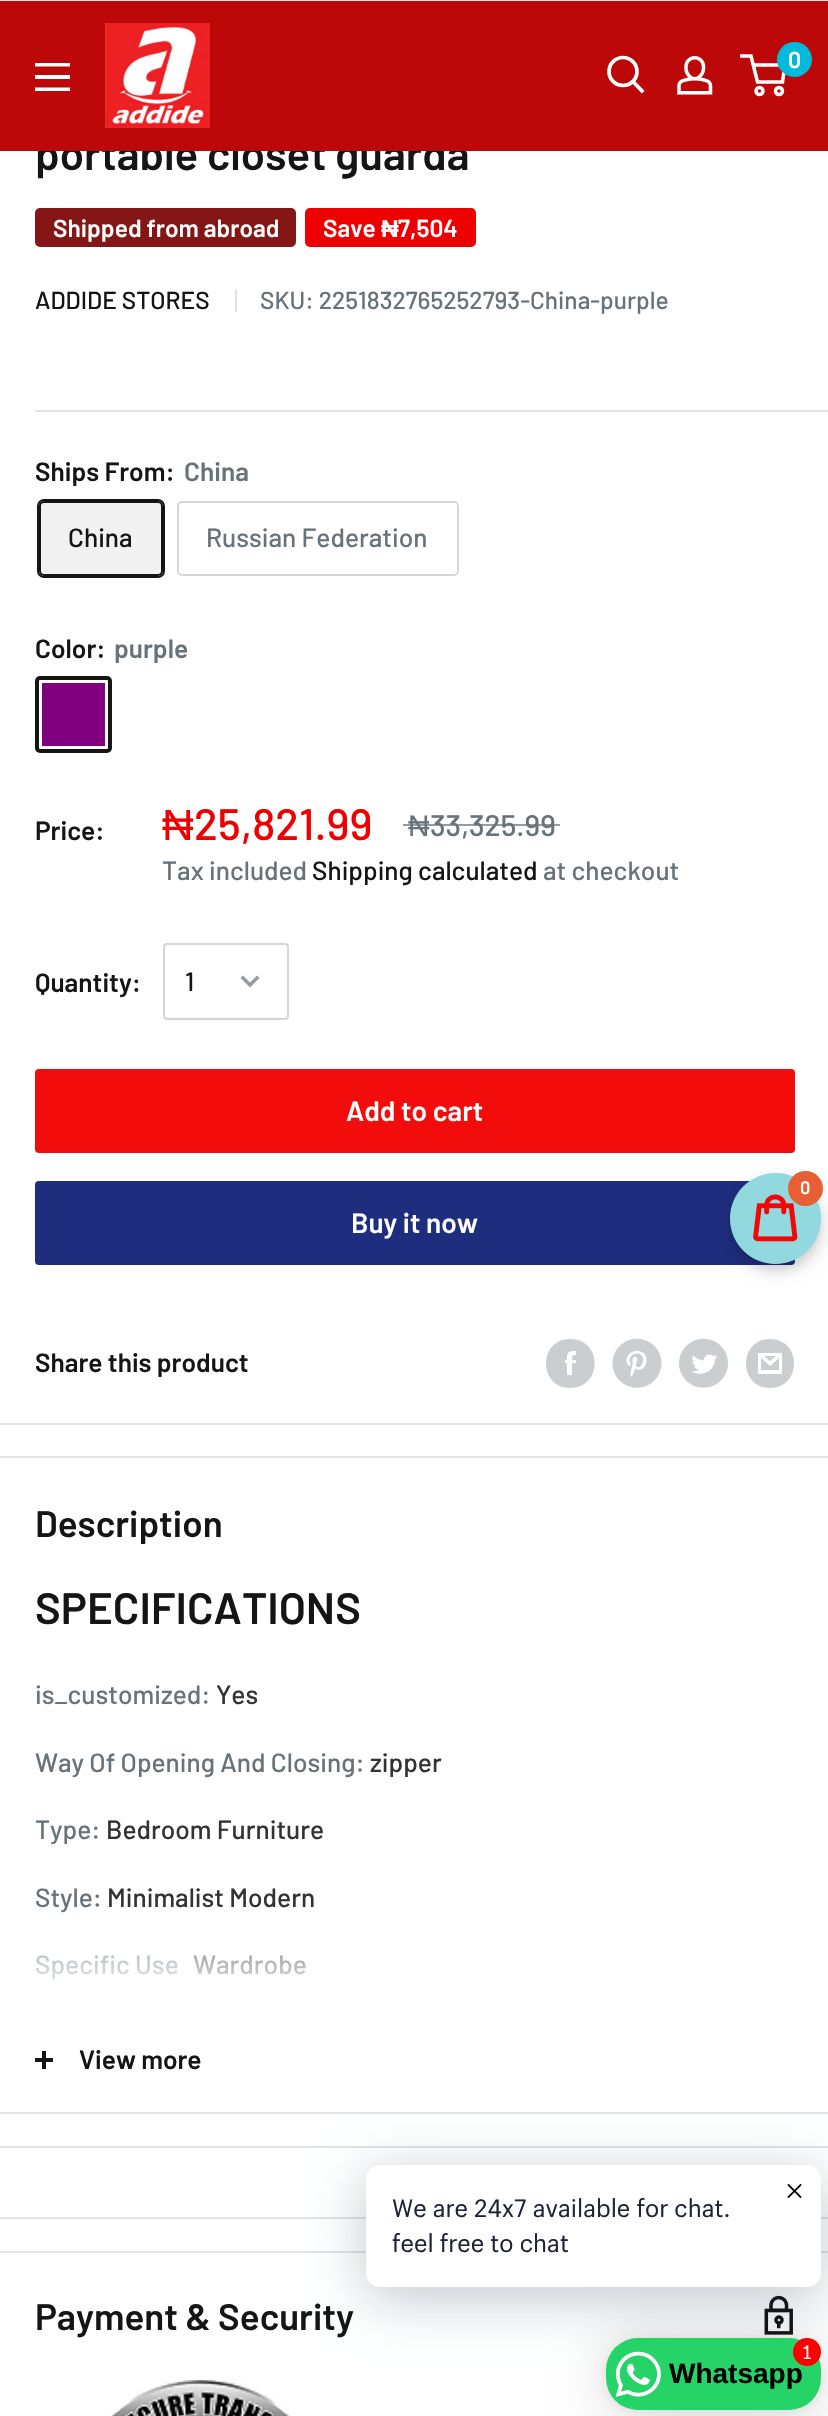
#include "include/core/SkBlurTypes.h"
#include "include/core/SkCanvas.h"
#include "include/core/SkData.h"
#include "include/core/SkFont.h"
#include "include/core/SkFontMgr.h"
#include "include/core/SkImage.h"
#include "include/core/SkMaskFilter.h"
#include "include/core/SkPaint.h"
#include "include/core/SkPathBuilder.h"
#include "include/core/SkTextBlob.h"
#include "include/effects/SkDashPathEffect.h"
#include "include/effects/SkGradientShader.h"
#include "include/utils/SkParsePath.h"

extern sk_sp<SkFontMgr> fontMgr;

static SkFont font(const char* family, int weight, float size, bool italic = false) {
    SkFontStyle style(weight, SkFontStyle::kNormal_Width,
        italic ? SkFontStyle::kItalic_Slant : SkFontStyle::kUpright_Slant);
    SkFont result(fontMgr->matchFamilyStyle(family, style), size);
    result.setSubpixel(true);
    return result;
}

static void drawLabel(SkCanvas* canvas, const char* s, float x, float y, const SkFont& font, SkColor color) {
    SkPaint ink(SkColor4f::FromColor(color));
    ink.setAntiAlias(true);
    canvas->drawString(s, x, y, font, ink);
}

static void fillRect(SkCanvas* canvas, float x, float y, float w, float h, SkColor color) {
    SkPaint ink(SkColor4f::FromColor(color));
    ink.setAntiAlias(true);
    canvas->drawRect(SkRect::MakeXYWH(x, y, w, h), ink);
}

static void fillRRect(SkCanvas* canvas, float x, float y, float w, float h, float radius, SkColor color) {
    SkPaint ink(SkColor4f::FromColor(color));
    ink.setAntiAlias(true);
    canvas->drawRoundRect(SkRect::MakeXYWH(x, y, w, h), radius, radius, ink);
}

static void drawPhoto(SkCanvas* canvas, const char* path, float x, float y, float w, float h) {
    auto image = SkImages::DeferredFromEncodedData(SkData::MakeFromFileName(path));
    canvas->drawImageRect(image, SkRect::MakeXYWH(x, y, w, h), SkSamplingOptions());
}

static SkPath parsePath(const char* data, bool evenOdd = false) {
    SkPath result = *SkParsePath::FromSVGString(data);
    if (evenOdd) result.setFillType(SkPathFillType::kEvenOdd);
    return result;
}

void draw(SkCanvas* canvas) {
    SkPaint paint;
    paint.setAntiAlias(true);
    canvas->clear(0xFFFFFFFF);
    fillRect(canvas, 0, 0, 828, 1, 0xFFE8E9EB);
    SkFont font1 = font("Barlow", 600, 43.75f);
    drawLabel(canvas, "portable closet guarda", 35, 170, font1, 0xFF161515);
    fillRect(canvas, 0, 1, 828, 150, 0xFFBC0808);
    drawPhoto(canvas, "assets/img1.png", 105, 23, 105, 105);
    paint.setStroke(true);
    paint.setStrokeWidth(3.7f);
    paint.setStrokeCap(SkPaint::kSquare_Cap);
    paint.setColor(0xFFFFFFFF);
    canvas->drawPath(parsePath("M642 91L633 81.5"), paint);
    paint.setStrokeCap(SkPaint::kButt_Cap);
    canvas->drawCircle(623, 71.5f, 14, paint);
    drawPhoto(canvas, "assets/img2.png", 677, 56, 36, 39);
    paint.setStrokeWidth(3.5f);
    canvas->drawCircle(759.5f, 91, 3.5f, paint);
    canvas->drawCircle(779, 91, 3.5f, paint);
    canvas->drawPath(parsePath("M753 65H785L782.5 82H757.5L751 56H740"), paint);
    paint.setStroke(false);
    paint.setColor(0xFF00BADB);
    canvas->drawCircle(794.5f, 59.5f, 17.5f, paint);
    SkFont font2 = font("Barlow", 600, 23);
    drawLabel(canvas, "0", 788, 68, font2, 0xFFFFFFFF);
    paint.setColor(0xFFFFFFFF);
    canvas->drawPath(parsePath("M35 87.5H70V91H35ZM35 63H70V66.5H35ZM35 75H70V79H35Z", true), paint);
    fillRect(canvas, 0, 1423, 828, 2, 0xFFE1E3E4);
    fillRRect(canvas, 35, 208, 261, 39, 5, 0xFF851616);
    SkFont font3 = font("Barlow", 600, 24.5f);
    drawLabel(canvas, "Shipped from abroad", 53, 237, font3, 0xFFFFFFFF);
    fillRRect(canvas, 305, 208, 171, 39, 5, 0xFFEE0000);
    drawLabel(canvas, "Save", 323, 237, font3, 0xFFFFFFFF);
    SkFont font4 = font("Liberation Sans", 700, 24.5f);
    drawLabel(canvas, "₦", 381, 237, font4, 0xFFFFFFFF);
    drawLabel(canvas, "7,504", 398, 237, font3, 0xFFFFFFFF);
    SkFont font5 = font("Barlow", 500, 24.5f);
    drawLabel(canvas, "ADDIDE STORES", 35, 309, font5, 0xFF161515);
    fillRect(canvas, 235, 289, 2, 23, 0xFFE1E3E4);
    drawLabel(canvas, "SKU: 2251832765252793-China-purple", 260, 309, font5, 0xFF677279);
    fillRect(canvas, 35, 410, 793, 2, 0xFFE1E3E4);
    SkFont font6 = font("Barlow", 600, 26.25f);
    drawLabel(canvas, "Ships From:", 35, 481, font6, 0xFF161515);
    drawLabel(canvas, "China", 184, 481, font6, 0xFF677279);
    paint.setStroke(true);
    paint.setStrokeWidth(2);
    paint.setColor(0xFF161515);
    canvas->drawRoundRect(SkRect::MakeXYWH(38, 500, 126, 77), 6, 6, paint);
    fillRect(canvas, 39, 501, 124, 75, 0x0F161515);
    canvas->drawRoundRect(SkRect::MakeXYWH(40, 502, 122, 73), 4, 4, paint);
    SkFont font7 = font("Barlow", 500, 26.25f);
    drawLabel(canvas, "China", 68, 547, font7, 0xFF161515);
    paint.setColor(0xFFD4D6D8);
    canvas->drawRoundRect(SkRect::MakeXYWH(178, 502, 280, 73), 4, 4, paint);
    drawLabel(canvas, "Russian Federation", 206, 547, font7, 0xFF677279);
    drawLabel(canvas, "Color:", 35, 658, font6, 0xFF161515);
    drawLabel(canvas, "purple", 114, 658, font6, 0xFF677279);
    fillRect(canvas, 42, 683, 63, 63, 0xFF800080);
    paint.setStrokeWidth(4);
    paint.setColor(0xFF161515);
    canvas->drawRoundRect(SkRect::MakeXYWH(37, 678, 73, 73), 3, 3, paint);
    drawLabel(canvas, "Price:", 35, 840, font6, 0xFF161515);
    SkFont font8 = font("Liberation Sans", 400, 43.75f);
    drawLabel(canvas, "₦", 162, 840, font8, 0xFFEE0000);
    SkFont font9 = font("Barlow", 500, 43.75f);
    drawLabel(canvas, "25,821.99", 194, 840, font9, 0xFFEE0000);
    SkFont font10 = font("Liberation Sans", 400, 29.75f);
    drawLabel(canvas, "₦", 408, 836, font10, 0xFF677279);
    SkFont font11 = font("Barlow", 500, 29.75f);
    drawLabel(canvas, "33,325.99", 430, 836, font11, 0xFF677279);
    fillRect(canvas, 403, 824, 157, 2, 0xB3677279);
    drawLabel(canvas, "Tax included", 162, 880, font7, 0xFF677279);
    drawLabel(canvas, "Shipping calculated", 312, 880, font7, 0xFF161515);
    drawLabel(canvas, "at checkout", 543, 880, font7, 0xFF677279);
    drawLabel(canvas, "Quantity:", 35, 992, font6, 0xFF161515);
    paint.setStroke(false);
    paint.setColor(0xFFF6F7F7);
    canvas->drawPath(parsePath("M165 1017C165 1018 166 1019 167 1019H285C286 1019 287 1018 287 1017V1015C287 1016 286 1017 285 1017Z"), paint);
    paint.setStroke(true);
    paint.setStrokeWidth(2);
    paint.setColor(0xFFD4D6D8);
    canvas->drawRoundRect(SkRect::MakeXYWH(164, 944, 124, 75), 3, 3, paint);
    drawLabel(canvas, "1", 185, 991, font7, 0xFF161515);
    paint.setStrokeWidth(3.5f);
    paint.setStrokeCap(SkPaint::kSquare_Cap);
    paint.setColor(0xFF959CA1);
    canvas->drawPath(parsePath("M257 978L250 985L243 978"), paint);
    fillRRect(canvas, 35, 1069, 760, 84, 4, 0xFFF20C0C);
    SkFont font12 = font("Barlow", 600, 28);
    drawLabel(canvas, "Add to cart", 346, 1121, font12, 0xFFFFFFFF);
    fillRRect(canvas, 35, 1181, 760, 84, 4, 0xFF1E2D7D);
    drawLabel(canvas, "Buy it now", 351, 1233, font12, 0xFFFFFFFF);
    drawLabel(canvas, "Share this product", 35, 1372, font6, 0xFF161515);
    paint.setStroke(false);
    paint.setColor(0xFFCACED0);
    canvas->drawPath(parsePath("M570 1388C538 1388 538 1339 570 1339C603 1339 603 1388 570 1388ZM576 1360H572C572 1356 572 1355 576 1355V1351C568 1351 567 1352 567 1360H565V1363H567V1375H572V1363H576Z", true), paint);
    drawPhoto(canvas, "assets/img3.png", 612, 1338, 50, 50);
    drawPhoto(canvas, "assets/img4.png", 679, 1338, 49, 50);
    canvas->drawPath(parsePath("M770 1388C738 1388 738 1339 770 1339C802 1339 802 1388 770 1388ZM764 1356H776L770 1361ZM779 1358V1370H761V1358L770 1366ZM782 1353H758V1374H782Z"), paint);
    fillRect(canvas, 0, 1456, 828, 2, 0xFFE1E3E4);
    fillRect(canvas, 0, 2112, 828, 2, 0xFFE1E3E4);
    SkFont font13 = font("Barlow", 600, 36.75f);
    drawLabel(canvas, "Description", 35, 1537, font13, 0xFF161515);
    drawLabel(canvas, "SPECIFICATIONS", 35, 1624, font1, 0xFF161515);
    drawLabel(canvas, "is_customized:", 35, 1704, font7, 0xFF677279);
    drawLabel(canvas, "Yes", 216, 1704, font7, 0xFF333333);
    drawLabel(canvas, "Way Of Opening And Closing:", 35, 1772, font7, 0xFF677279);
    drawLabel(canvas, "zipper", 370, 1772, font7, 0xFF333333);
    drawLabel(canvas, "Type:", 35, 1839, font7, 0xFF677279);
    drawLabel(canvas, "Bedroom Furniture", 106, 1839, font7, 0xFF333333);
    drawLabel(canvas, "Style:", 35, 1907, font7, 0xFF677279);
    drawLabel(canvas, "Minimalist Modern", 107, 1907, font7, 0xFF333333);
    drawLabel(canvas, "Specific Use", 35, 1974, font7, 0xFF677279);
    drawLabel(canvas, "Wardrobe", 193, 1974, font7, 0xFF333333);
    {
        const SkColor colors[] = {0x00FFFFFF, 0x66FFFFFF, 0xFFFFFFFF};
        const float stops[] = {0, 0.15f, 1};
        const SkPoint ends[] = {{415, 1920}, {415, 2007}};
        paint.setShader(SkGradientShader::MakeLinear(ends, colors, stops, 3, SkTileMode::kClamp));
        paint.setAlpha(255);
    }
    canvas->drawRect(SkRect::MakeXYWH(36, 1955, 270, 24), paint);
    fillRect(canvas, 42, 2051, 4, 18, 0xFF161515);
    fillRect(canvas, 35, 2058, 18, 4, 0xFF161515);
    drawLabel(canvas, "View more", 79, 2069, font6, 0xFF161515);
    fillRect(canvas, 0, 2146, 828, 2, 0xFFE1E3E4);
    fillRect(canvas, 0, 2217, 828, 2, 0xFFE1E3E4);
    fillRect(canvas, 0, 2251, 828, 2, 0xFFE1E3E4);
    drawLabel(canvas, "Payment & Security", 35, 2330, font13, 0xFF161515);
    drawPhoto(canvas, "assets/img5.png", 764, 2295, 29, 40);
    drawPhoto(canvas, "assets/img6.png", 111, 2380, 179, 36);
    paint.setShader(nullptr);
    paint.setColor(0x14000000);
    paint.setMaskFilter(SkMaskFilter::MakeBlur(kNormal_SkBlurStyle, 3.5f));
    canvas->drawRoundRect(SkRect::MakeXYWH(730, 1180, 91, 91), 45.5f, 45.5f, paint);
    paint.setMaskFilter(nullptr);
    paint.setColor(0x1F000000);
    paint.setMaskFilter(SkMaskFilter::MakeBlur(kNormal_SkBlurStyle, 9));
    canvas->drawRoundRect(SkRect::MakeXYWH(732, 1180, 91, 91), 45.5f, 45.5f, paint);
    paint.setMaskFilter(nullptr);
    paint.setColor(0xFF92D8DF);
    canvas->drawCircle(775.5f, 1218.5f, 45.5f, paint);
    drawPhoto(canvas, "assets/img7.png", 753, 1194, 45, 48);
    paint.setColor(0xFFE75F33);
    canvas->drawCircle(805.5f, 1188.5f, 17.5f, paint);
    SkFont font14 = font("Barlow", 600, 18);
    drawLabel(canvas, "0", 800, 1194, font14, 0xFFFFFFFF);
    paint.setColor(0x3D00122E);
    paint.setMaskFilter(SkMaskFilter::MakeBlur(kNormal_SkBlurStyle, 28));
    canvas->drawRoundRect(SkRect::MakeXYWH(366, 2175, 455, 123), 14, 14, paint);
    paint.setMaskFilter(nullptr);
    fillRRect(canvas, 366, 2165, 455, 122, 14, 0xFFFFFFFF);
    drawPhoto(canvas, "assets/img8.png", 787, 2184, 15, 14);
    SkFont font15 = font("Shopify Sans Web", 400, 24.5f);
    drawLabel(canvas, "We are 24x7 available for chat.", 392, 2217, font15, 0xFF1E2433);
    drawLabel(canvas, "feel free to chat", 392, 2252, font15, 0xFF1E2433);
    paint.setColor(0x29000000);
    paint.setMaskFilter(SkMaskFilter::MakeBlur(kNormal_SkBlurStyle, 28));
    canvas->drawRoundRect(SkRect::MakeXYWH(606, 2342, 215, 71), 32, 32, paint);
    paint.setMaskFilter(nullptr);
    paint.setColor(0x0F000000);
    paint.setMaskFilter(SkMaskFilter::MakeBlur(kNormal_SkBlurStyle, 5));
    canvas->drawRoundRect(SkRect::MakeXYWH(606, 2340, 215, 72), 32, 32, paint);
    paint.setMaskFilter(nullptr);
    fillRRect(canvas, 606, 2338, 215, 72, 32, 0xFF25D366);
    drawPhoto(canvas, "assets/img9.png", 615, 2351, 46, 46);
    SkFont font16 = font("Liberation Sans", 700, 28);
    drawLabel(canvas, "Whatsapp", 669, 2383, font16, 0xFF000000);
    paint.setColor(0xFFFF0000);
    canvas->drawCircle(807, 2352, 14, paint);
    SkFont font17 = font("Shopify Sans Web", 400, 19);
    drawLabel(canvas, "1", 803, 2359, font17, 0xFFFFFFFF);
}
